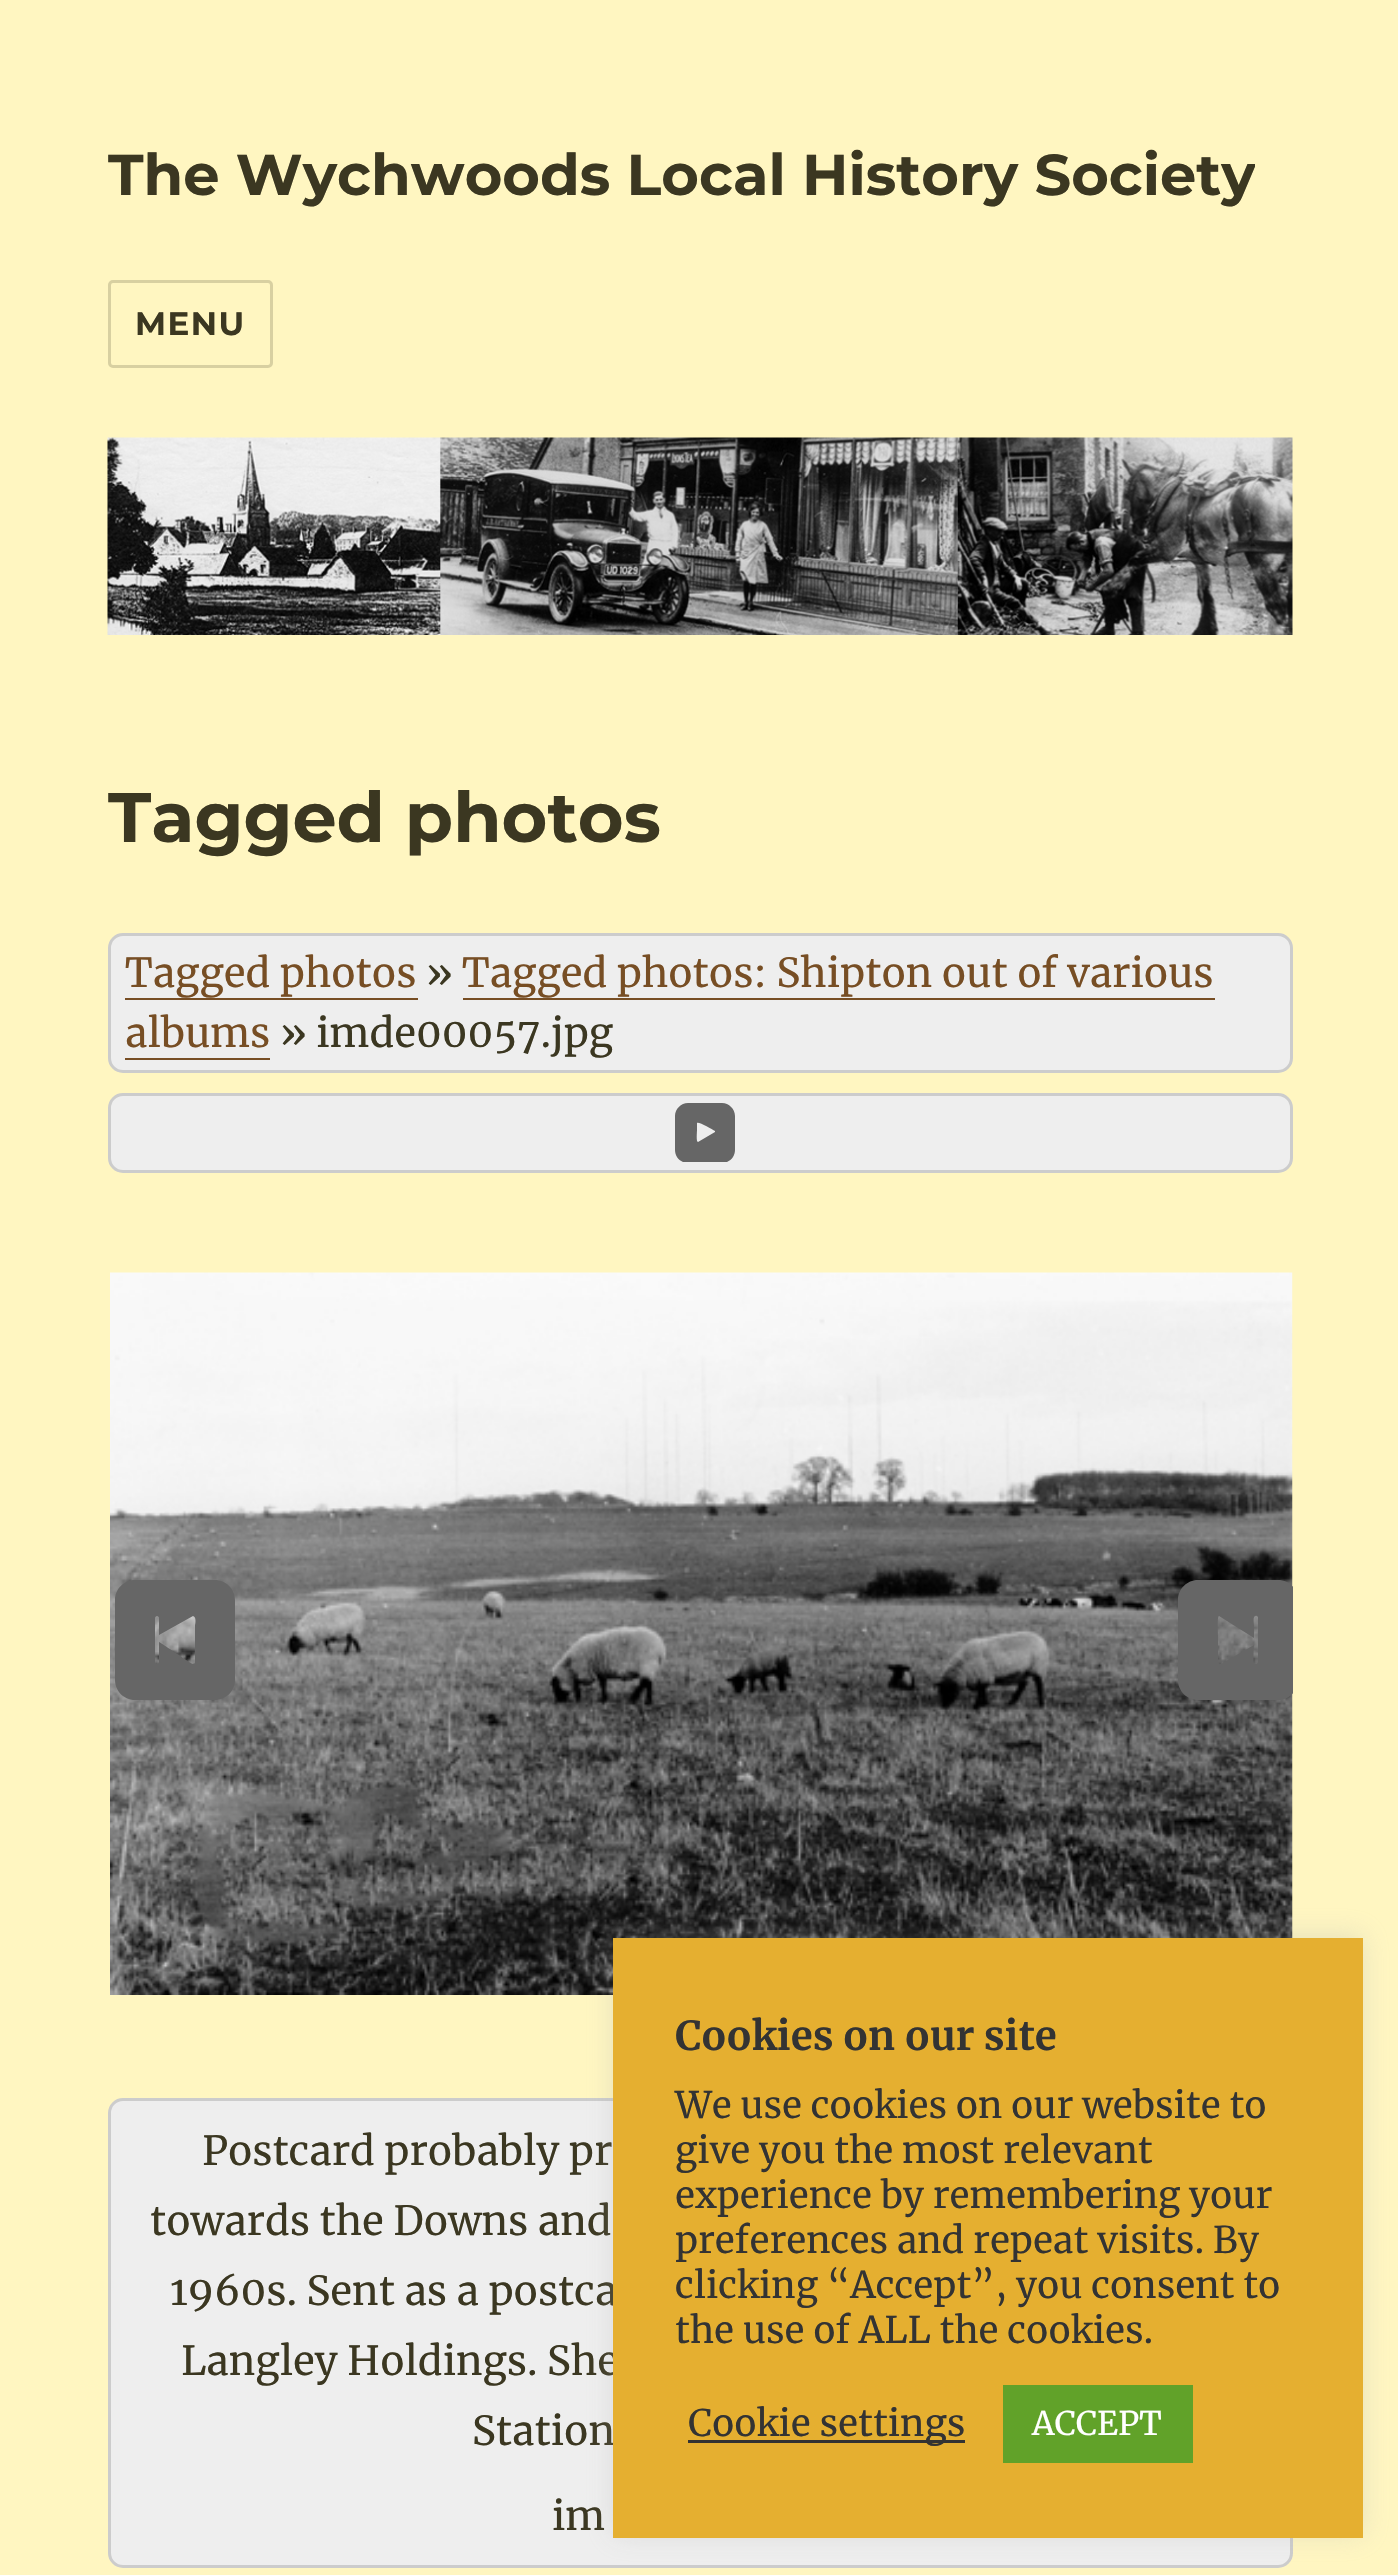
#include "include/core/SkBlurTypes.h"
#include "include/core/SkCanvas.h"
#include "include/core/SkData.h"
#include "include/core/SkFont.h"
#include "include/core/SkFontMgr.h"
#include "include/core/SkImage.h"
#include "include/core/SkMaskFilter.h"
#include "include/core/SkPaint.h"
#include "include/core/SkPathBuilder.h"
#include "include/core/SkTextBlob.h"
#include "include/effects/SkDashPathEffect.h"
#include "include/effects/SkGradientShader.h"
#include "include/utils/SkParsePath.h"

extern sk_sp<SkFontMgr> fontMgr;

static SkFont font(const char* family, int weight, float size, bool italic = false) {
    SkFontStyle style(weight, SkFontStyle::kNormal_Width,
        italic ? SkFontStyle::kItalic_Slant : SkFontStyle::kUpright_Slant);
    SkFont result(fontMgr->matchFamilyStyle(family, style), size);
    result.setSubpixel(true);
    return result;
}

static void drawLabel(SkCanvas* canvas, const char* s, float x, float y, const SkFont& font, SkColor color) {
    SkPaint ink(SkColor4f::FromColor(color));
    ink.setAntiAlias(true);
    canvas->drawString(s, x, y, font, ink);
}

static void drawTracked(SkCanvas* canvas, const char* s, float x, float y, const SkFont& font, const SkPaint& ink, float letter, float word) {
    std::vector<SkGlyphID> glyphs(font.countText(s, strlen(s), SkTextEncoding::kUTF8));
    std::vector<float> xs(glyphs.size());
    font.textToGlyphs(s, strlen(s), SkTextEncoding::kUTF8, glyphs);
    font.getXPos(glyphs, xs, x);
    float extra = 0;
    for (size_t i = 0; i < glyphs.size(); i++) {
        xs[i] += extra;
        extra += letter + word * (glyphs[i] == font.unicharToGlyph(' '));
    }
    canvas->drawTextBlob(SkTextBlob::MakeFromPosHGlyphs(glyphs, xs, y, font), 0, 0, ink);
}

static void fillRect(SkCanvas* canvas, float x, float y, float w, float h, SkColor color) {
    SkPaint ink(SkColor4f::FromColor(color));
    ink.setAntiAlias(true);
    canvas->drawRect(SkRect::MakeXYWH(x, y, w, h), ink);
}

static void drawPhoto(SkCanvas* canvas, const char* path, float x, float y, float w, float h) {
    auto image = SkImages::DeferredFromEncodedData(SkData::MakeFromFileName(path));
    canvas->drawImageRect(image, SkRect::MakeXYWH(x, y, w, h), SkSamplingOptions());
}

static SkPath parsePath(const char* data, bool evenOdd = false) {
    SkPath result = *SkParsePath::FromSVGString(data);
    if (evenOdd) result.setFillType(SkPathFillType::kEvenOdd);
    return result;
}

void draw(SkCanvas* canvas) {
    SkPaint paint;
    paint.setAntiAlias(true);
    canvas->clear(0xFFFFF6C1);
    canvas->save();
    canvas->clipRect(SkRect::MakeXYWH(108, 140, 1147, 70));
    SkFont font1 = font("Montserrat", 100, 57.5f);
    drawLabel(canvas, "The Wychwoods Local History Society", 108, 195, font1, 0xFF3B3721);
    canvas->restore();
    paint.setStroke(true);
    paint.setStrokeWidth(3);
    paint.setColor(0xFFD8D0A1);
    canvas->drawRoundRect(SkRect::MakeXYWH(109.5f, 281.5f, 162, 85), 3.5f, 3.5f, paint);
    SkFont font2 = font("Montserrat", 100, 32.5f);
    paint.setStroke(false);
    paint.setColor(0xFF3B3721);
    drawTracked(canvas, "MENU", 135, 335, font2, paint, 1.5f, 0);
    drawPhoto(canvas, "assets/img1.png", 107, 437, 1186, 198);
    SkFont font3 = font("Montserrat", 100, 70);
    drawLabel(canvas, "Tagged photos", 108, 842, font3, 0xFF3B3721);
    paint.setColor(0xFFEEEEEE);
    canvas->drawRoundRect(SkRect::MakeXYWH(109.5f, 934.5f, 1182, 137), 13.5f, 13.5f, paint);
    paint.setStroke(true);
    paint.setColor(0xFFCCCCCC);
    canvas->drawRoundRect(SkRect::MakeXYWH(109.5f, 934.5f, 1182, 137), 13.5f, 13.5f, paint);
    SkFont font4 = font("Merriweather", 400, 40);
    drawLabel(canvas, "Tagged photos", 125, 987, font4, 0xFF774E24);
    paint.setStroke(false);
    paint.setColor(0xFF774E24);
    canvas->drawPath(parsePath("M125 998V1000H418V950V998Z"), paint);
    drawLabel(canvas, "»", 426, 987, font4, 0xFF3B3721);
    drawLabel(canvas, "Tagged photos: Shipton out of various", 462, 987, font4, 0xFF774E24);
    fillRect(canvas, 463, 998, 752, 2, 0xFF774E24);
    drawLabel(canvas, "albums", 125, 1047, font4, 0xFF774E24);
    fillRect(canvas, 125, 1058, 145, 2, 0xFF774E24);
    drawLabel(canvas, "» imde00057.jpg", 280, 1047, font4, 0xFF3B3721);
    paint.setColor(0xFFEEEEEE);
    canvas->drawRoundRect(SkRect::MakeXYWH(109.5f, 1094.5f, 1182, 77), 13.5f, 13.5f, paint);
    paint.setStroke(true);
    paint.setColor(0xFFCCCCCC);
    canvas->drawRoundRect(SkRect::MakeXYWH(109.5f, 1094.5f, 1182, 77), 13.5f, 13.5f, paint);
    paint.setStroke(false);
    paint.setColor(0xFF666666);
    canvas->drawPath(parsePath("M688 1103C681 1103 675 1109 675 1116V1150C675 1155 678 1160 683 1162H727C732 1160 735 1155 735 1150V1116C735 1109 729 1103 722 1103ZM715 1132V1131C712 1129 698 1121 697 1123V1130C697 1132 696 1142 698 1142Z", true), paint);
    drawPhoto(canvas, "assets/img2.png", 110, 1272, 1183, 723);
    canvas->drawPath(parsePath("M135 1580C124 1580 115 1589 115 1600V1680C115 1691 124 1700 135 1700H215C226 1700 235 1691 235 1680V1600C235 1589 226 1580 215 1580ZM195 1662V1625C195 1625 197 1617 193 1616L159 1635V1618C159 1617 158 1616 157 1616C156 1616 155 1617 155 1618V1662C155 1663 156 1664 157 1664C158 1664 159 1663 159 1662V1642C163 1644 191 1664 193 1664C194 1663 195 1664 195 1662Z", true), paint);
    canvas->save();
    canvas->clipRect(SkRect::MakeXYWH(110, 1193, 1183, 885));
    canvas->drawPath(parsePath("M1198 1580C1187 1580 1178 1589 1178 1600V1680C1178 1691 1187 1700 1198 1700H1278C1289 1700 1298 1691 1298 1680V1600C1298 1589 1289 1580 1278 1580ZM1258 1662V1617L1257 1616C1252 1614 1254 1624 1254 1625V1638L1219 1616C1217 1616 1218 1632 1218 1635V1661L1219 1664C1221 1665 1225 1661 1226 1661L1254 1645C1254 1646 1253 1662 1254 1663C1255 1664 1256 1664 1257 1664Z", true), paint);
    canvas->restore();
    paint.setColor(0xFFEEEEEE);
    canvas->drawRoundRect(SkRect::MakeXYWH(109.5f, 2099.5f, 1182, 467), 13.5f, 13.5f, paint);
    paint.setStroke(true);
    paint.setColor(0xFFCCCCCC);
    canvas->drawRoundRect(SkRect::MakeXYWH(109.5f, 2099.5f, 1182, 467), 13.5f, 13.5f, paint);
    drawLabel(canvas, "Postcard probably pr", 202, 2165, font4, 0xFF3B3721);
    drawLabel(canvas, "towards the Downs and", 150, 2235, font4, 0xFF3B3721);
    drawLabel(canvas, "1960s. Sent as a postca", 170, 2305, font4, 0xFF3B3721);
    drawLabel(canvas, "Langley Holdings. She", 181, 2375, font4, 0xFF3B3721);
    drawLabel(canvas, "Station", 472, 2445, font4, 0xFF3B3721);
    drawLabel(canvas, "im", 552, 2530, font4, 0xFF3B3721);
    paint.setStroke(false);
    paint.setColor(0x4DACABAB);
    paint.setMaskFilter(SkMaskFilter::MakeBlur(kNormal_SkBlurStyle, 12.5f));
    canvas->drawRect(SkRect::MakeXYWH(613, 1935, 750, 600), paint);
    paint.setMaskFilter(nullptr);
    fillRect(canvas, 613, 1938, 750, 600, 0xFFE5AF30);
    SkFont font5 = font("Merriweather", 700, 40);
    drawLabel(canvas, "Cookies on our site", 675, 2050, font5, 0xFF333333);
    SkFont font6 = font("Merriweather", 400, 36.7f);
    drawLabel(canvas, "We use cookies on our website to", 675, 2118, font6, 0xFF333333);
    drawLabel(canvas, "give you the most relevant", 675, 2163, font6, 0xFF333333);
    drawLabel(canvas, "experience by remembering your", 675, 2208, font6, 0xFF333333);
    drawLabel(canvas, "preferences and repeat visits. By", 675, 2253, font6, 0xFF333333);
    drawLabel(canvas, "clicking “Accept”, you consent to", 675, 2298, font6, 0xFF333333);
    drawLabel(canvas, "the use of ALL the cookies.", 675, 2343, font6, 0xFF333333);
    fillRect(canvas, 688, 2440, 277, 3, 0xFF333333);
    drawLabel(canvas, "Cookie settings", 688, 2436, font6, 0xFF333333);
    fillRect(canvas, 1003, 2385, 190, 78, 0xFF61A229);
    SkFont font7 = font("Merriweather", 400, 32.5f);
    drawLabel(canvas, "ACCEPT", 1032, 2435, font7, 0xFFFFFFFF);
}
